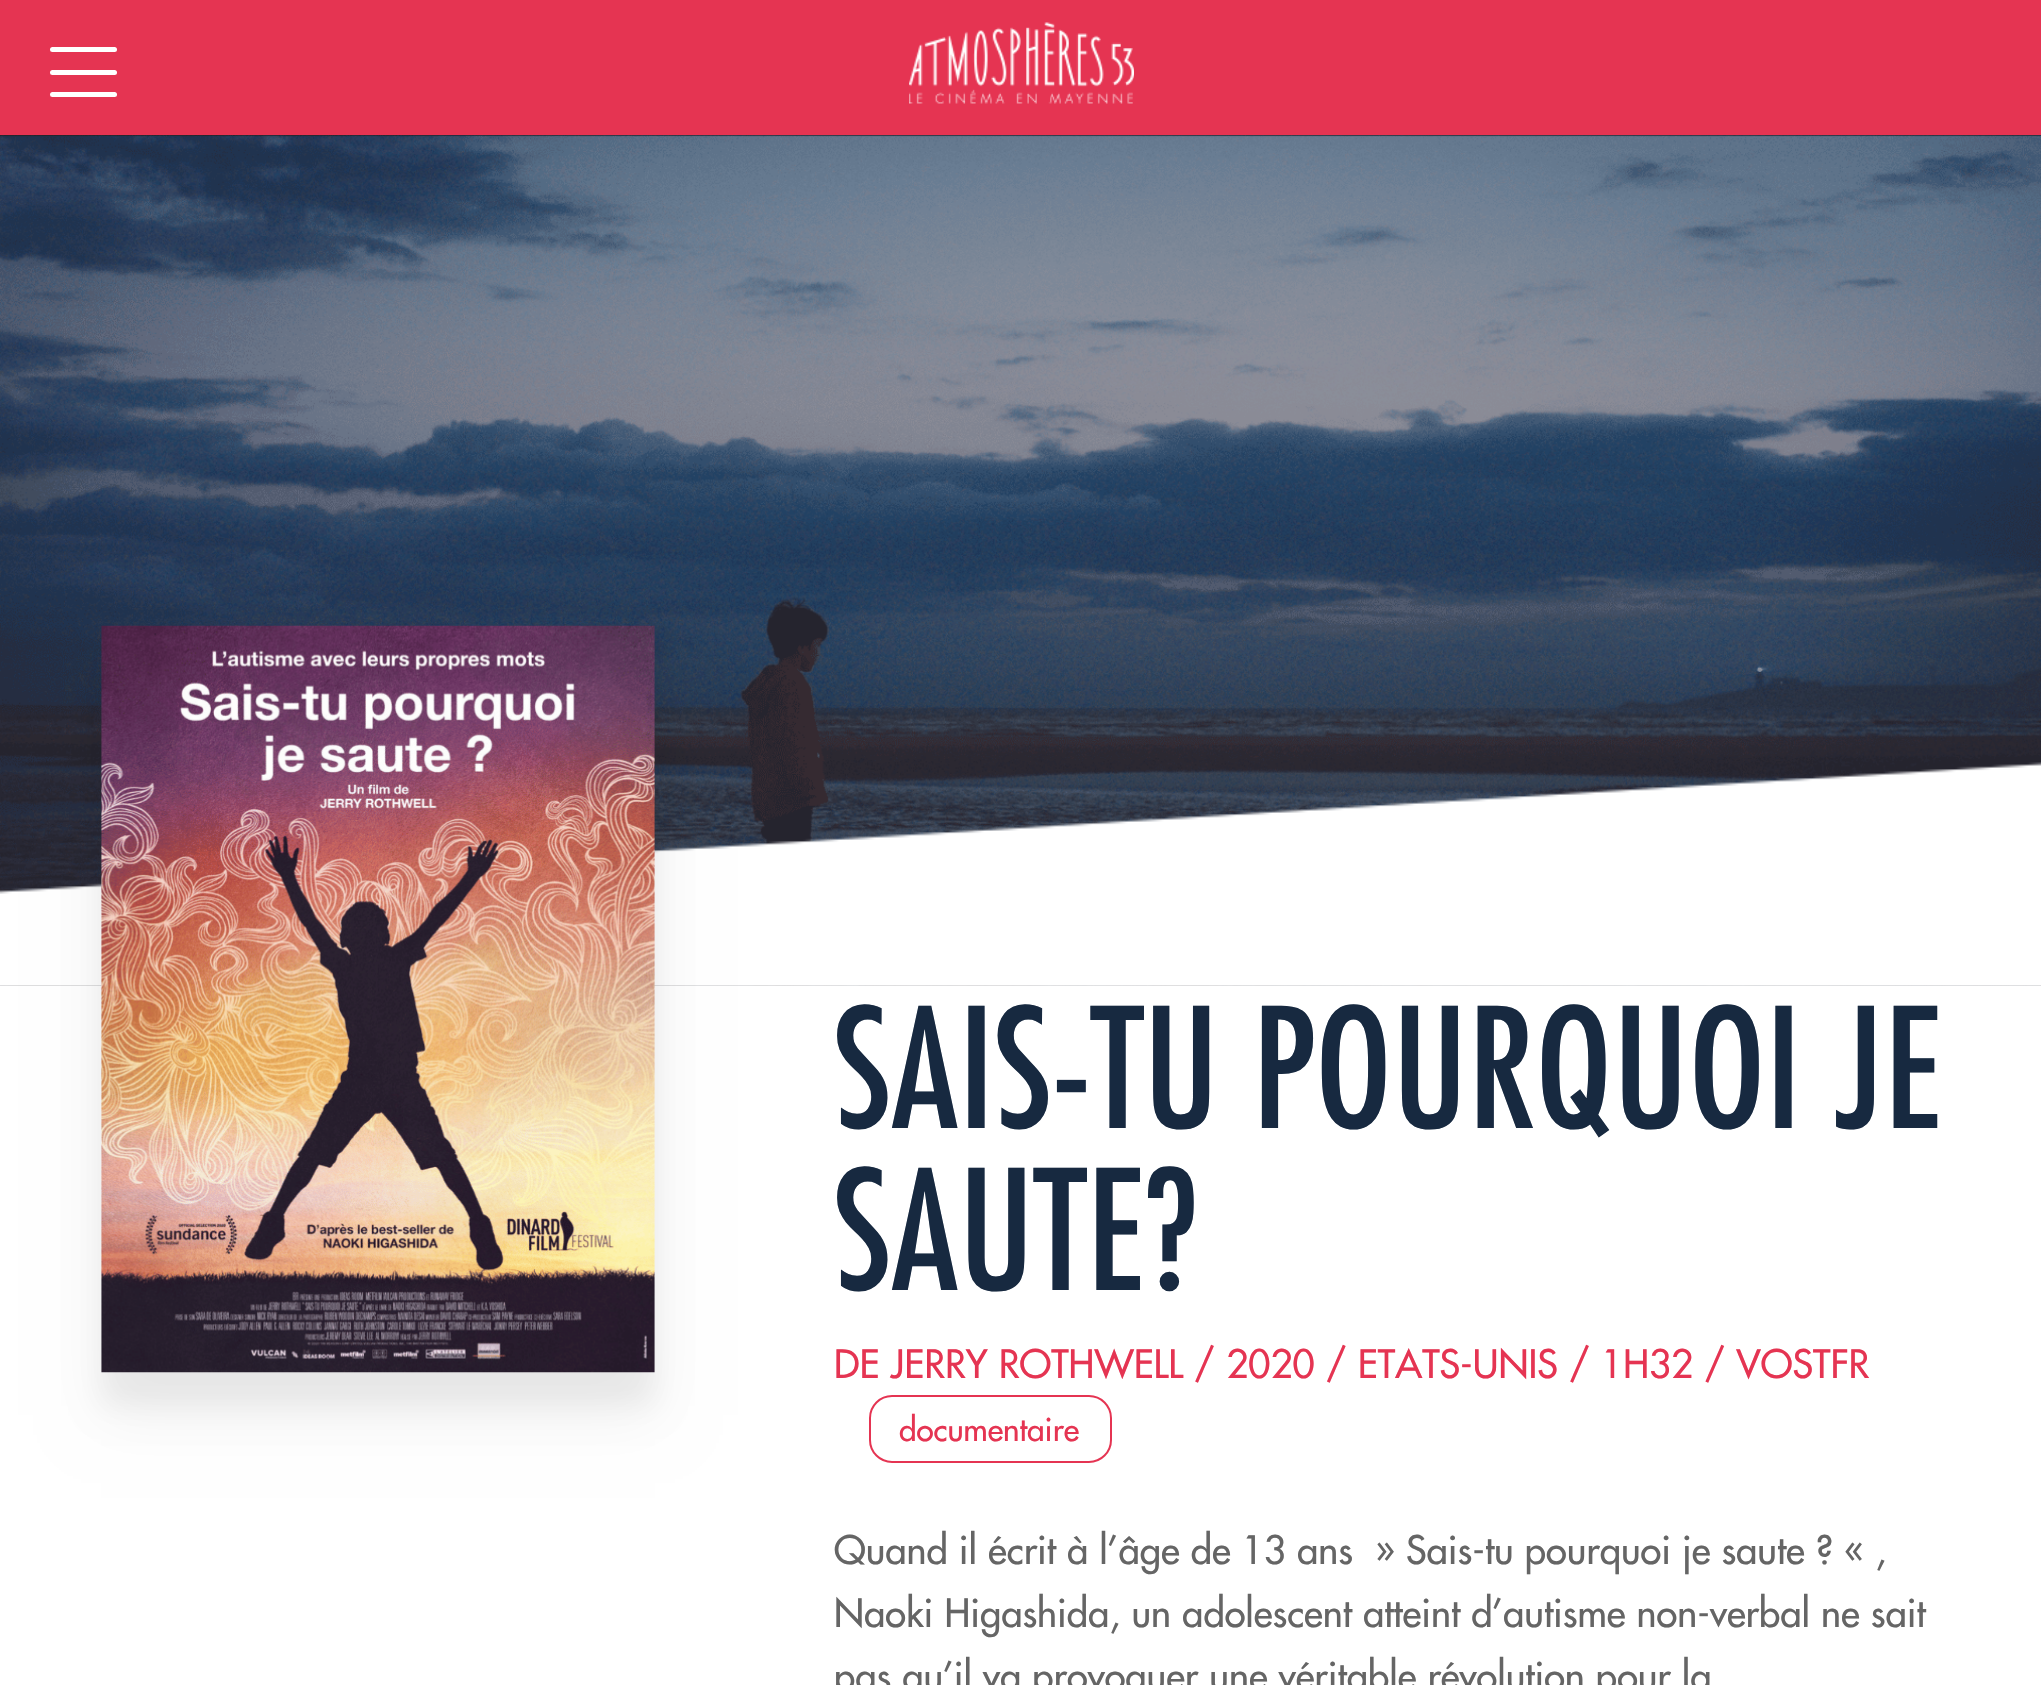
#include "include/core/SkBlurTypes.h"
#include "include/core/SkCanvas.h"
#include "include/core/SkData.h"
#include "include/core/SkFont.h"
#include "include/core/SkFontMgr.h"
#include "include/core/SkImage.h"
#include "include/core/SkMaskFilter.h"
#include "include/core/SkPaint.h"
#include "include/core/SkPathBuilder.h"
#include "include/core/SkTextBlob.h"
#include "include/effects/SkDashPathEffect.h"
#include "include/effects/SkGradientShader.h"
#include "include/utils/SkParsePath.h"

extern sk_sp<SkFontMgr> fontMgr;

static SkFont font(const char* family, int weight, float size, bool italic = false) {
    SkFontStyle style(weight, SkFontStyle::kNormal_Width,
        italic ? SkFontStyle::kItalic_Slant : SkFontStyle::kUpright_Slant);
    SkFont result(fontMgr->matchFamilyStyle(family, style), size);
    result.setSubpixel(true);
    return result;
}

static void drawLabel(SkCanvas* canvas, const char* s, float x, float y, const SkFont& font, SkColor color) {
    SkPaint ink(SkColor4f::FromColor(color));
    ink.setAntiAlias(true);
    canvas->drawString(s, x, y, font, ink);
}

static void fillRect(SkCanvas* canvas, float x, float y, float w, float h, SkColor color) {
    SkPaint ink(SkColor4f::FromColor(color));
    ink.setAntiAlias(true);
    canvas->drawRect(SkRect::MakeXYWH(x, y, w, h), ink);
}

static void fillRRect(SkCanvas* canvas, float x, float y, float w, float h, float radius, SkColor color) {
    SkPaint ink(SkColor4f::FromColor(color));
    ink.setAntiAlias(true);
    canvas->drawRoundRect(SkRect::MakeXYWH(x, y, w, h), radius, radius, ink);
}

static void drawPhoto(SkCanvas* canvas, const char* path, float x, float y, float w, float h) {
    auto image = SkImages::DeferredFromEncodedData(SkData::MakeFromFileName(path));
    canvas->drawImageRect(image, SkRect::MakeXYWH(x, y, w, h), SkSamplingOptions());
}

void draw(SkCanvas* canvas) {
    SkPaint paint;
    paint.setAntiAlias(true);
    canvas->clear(0xFFF1F1F1);
    fillRect(canvas, 0, 0, 2041, 135, 0xFFE53452);
    fillRRect(canvas, 50, 47, 67, 5, 2.5f, 0xFFFFFFFF);
    fillRRect(canvas, 50, 70, 67, 5, 2.5f, 0xFFFFFFFF);
    fillRRect(canvas, 50, 92, 67, 5, 2.5f, 0xFFFFFFFF);
    drawPhoto(canvas, "assets/img1.png", 909, 22, 225, 82);
    drawPhoto(canvas, "assets/img2.png", 0, 135, 2041, 851);
    fillRect(canvas, 0, 986, 2041, 699, 0xFFFFFFFF);
    drawPhoto(canvas, "assets/img3.png", 0, 762, 2041, 224);
    paint.setColor(0x0D000000);
    paint.setMaskFilter(SkMaskFilter::MakeBlur(kNormal_SkBlurStyle, 13.5f));
    canvas->drawRect(SkRect::MakeXYWH(101, 659, 554, 747), paint);
    paint.setMaskFilter(nullptr);
    paint.setMaskFilter(SkMaskFilter::MakeBlur(kNormal_SkBlurStyle, 28));
    canvas->drawRect(SkRect::MakeXYWH(101, 668, 554, 747), paint);
    paint.setMaskFilter(nullptr);
    drawPhoto(canvas, "assets/img4.png", 101, 625, 554, 748);
    SkFont font1 = font("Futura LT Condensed", 500, 162);
    drawLabel(canvas, "SAIS-TU POURQUOI JE", 834, 1128, font1, 0xFF172940);
    drawLabel(canvas, "SAUTE?", 834, 1290, font1, 0xFF172940);
    SkFont font2 = font("Futura", 400, 38.25f);
    drawLabel(canvas, "DE JERRY ROTHWELL / 2020 / ETATS-UNIS / 1H32 / VOSTFR", 834, 1378, font2, 0xFFE53452);
    paint.setStroke(true);
    paint.setStrokeWidth(2);
    paint.setColor(0xFFE53452);
    canvas->drawRoundRect(SkRect::MakeXYWH(870, 1396, 241, 66), 22, 22, paint);
    SkFont font3 = font("Futura", 400, 31.5f);
    drawLabel(canvas, "documentaire", 899, 1441, font3, 0xFFE53452);
    drawLabel(canvas, "Quand il écrit à l’âge de 13 ans  » Sais-tu pourquoi je saute ? « ,", 834, 1564, font2, 0xFF656565);
    drawLabel(canvas, "Naoki Higashida, un adolescent atteint d’autisme non-verbal ne sait", 834, 1627, font2, 0xFF656565);
    drawLabel(canvas, "pas qu’il va provoquer une véritable révolution pour la", 834, 1690, font2, 0xFF656565);
}
